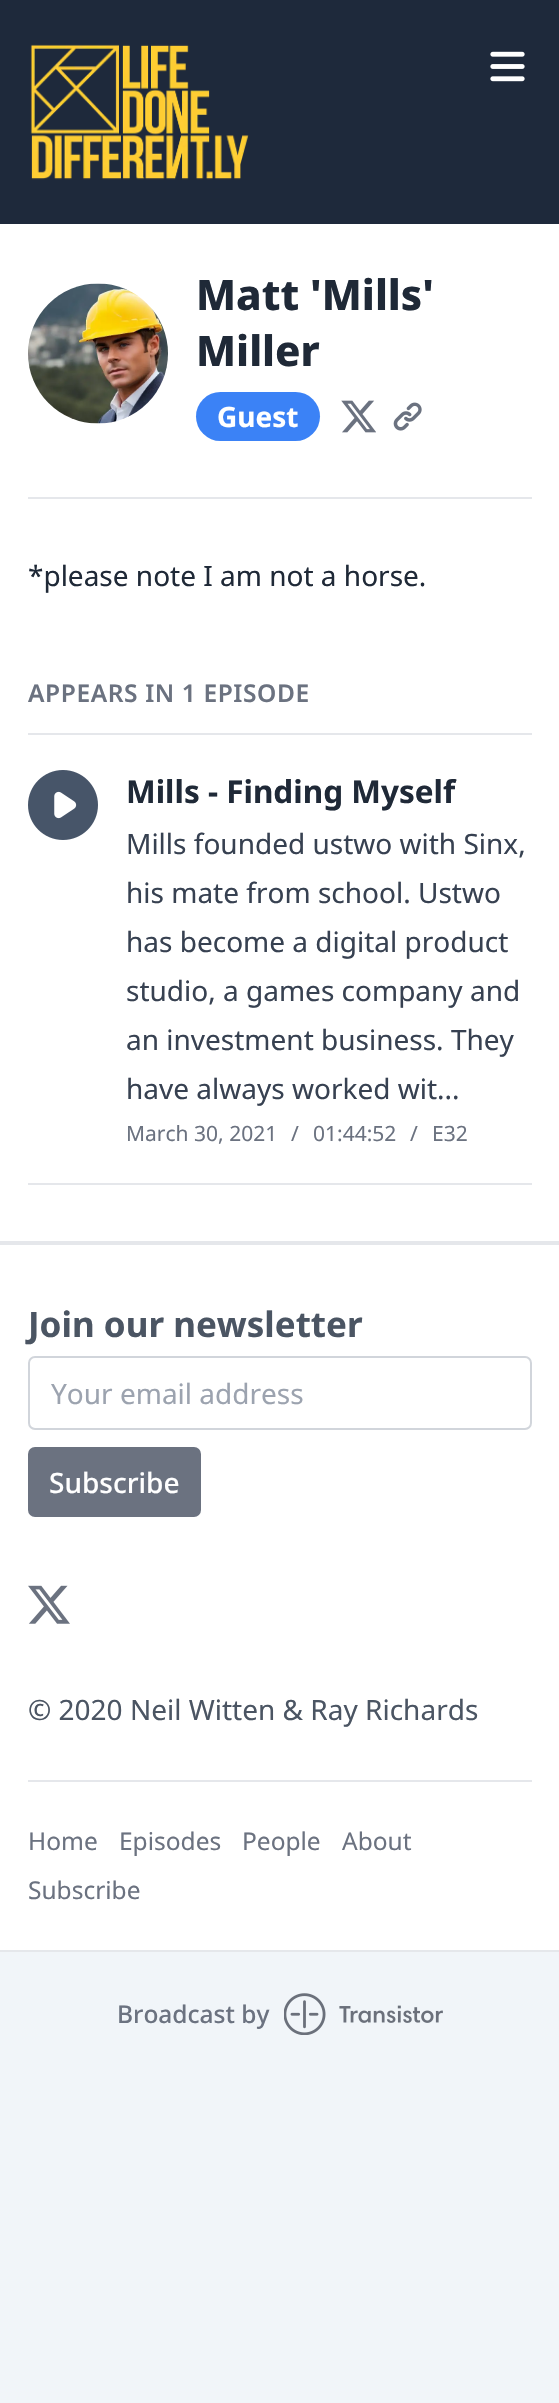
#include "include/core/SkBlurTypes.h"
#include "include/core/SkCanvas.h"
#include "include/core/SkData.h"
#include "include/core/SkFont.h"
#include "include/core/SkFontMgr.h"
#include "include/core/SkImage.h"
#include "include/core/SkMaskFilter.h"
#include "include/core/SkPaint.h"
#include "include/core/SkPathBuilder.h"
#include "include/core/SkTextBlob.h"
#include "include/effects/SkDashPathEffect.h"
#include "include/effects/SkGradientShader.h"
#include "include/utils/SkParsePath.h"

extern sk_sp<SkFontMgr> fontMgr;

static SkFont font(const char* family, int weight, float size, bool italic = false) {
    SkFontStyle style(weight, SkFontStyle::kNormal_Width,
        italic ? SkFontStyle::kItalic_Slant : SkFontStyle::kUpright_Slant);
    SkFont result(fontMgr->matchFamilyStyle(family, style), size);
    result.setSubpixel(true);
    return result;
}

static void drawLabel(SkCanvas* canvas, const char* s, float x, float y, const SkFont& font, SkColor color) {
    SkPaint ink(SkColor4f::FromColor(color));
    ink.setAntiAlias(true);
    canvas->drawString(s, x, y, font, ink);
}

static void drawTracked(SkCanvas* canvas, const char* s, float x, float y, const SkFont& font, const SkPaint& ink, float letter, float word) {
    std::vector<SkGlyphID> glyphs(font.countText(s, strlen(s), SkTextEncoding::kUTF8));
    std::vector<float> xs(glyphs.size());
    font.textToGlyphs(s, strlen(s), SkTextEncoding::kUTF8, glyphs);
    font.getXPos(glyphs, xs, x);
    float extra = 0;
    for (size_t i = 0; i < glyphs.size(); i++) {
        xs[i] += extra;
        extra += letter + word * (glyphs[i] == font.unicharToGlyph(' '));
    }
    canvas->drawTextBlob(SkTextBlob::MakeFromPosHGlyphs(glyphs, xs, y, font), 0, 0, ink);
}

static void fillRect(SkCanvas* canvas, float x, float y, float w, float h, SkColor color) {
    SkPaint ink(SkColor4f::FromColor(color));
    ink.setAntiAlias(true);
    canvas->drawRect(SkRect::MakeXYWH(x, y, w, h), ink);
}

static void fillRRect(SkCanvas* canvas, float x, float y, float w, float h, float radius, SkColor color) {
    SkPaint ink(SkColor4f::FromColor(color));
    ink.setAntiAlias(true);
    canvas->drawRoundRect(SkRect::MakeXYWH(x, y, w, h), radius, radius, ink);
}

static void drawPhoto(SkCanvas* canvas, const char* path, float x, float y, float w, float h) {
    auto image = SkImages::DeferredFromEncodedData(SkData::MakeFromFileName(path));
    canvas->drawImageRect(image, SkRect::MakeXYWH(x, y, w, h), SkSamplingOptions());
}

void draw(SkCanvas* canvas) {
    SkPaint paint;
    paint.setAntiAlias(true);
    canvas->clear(0xFFF1F5F9);
    fillRect(canvas, 0, 0, 559, 224, 0xFF1E293B);
    drawPhoto(canvas, "assets/img1.png", 30, 44, 219, 136);
    drawPhoto(canvas, "assets/img2.png", 490, 51, 35, 31);
    fillRect(canvas, 0, 224, 559, 1726, 0xFFFFFFFF);
    fillRect(canvas, 0, 1950, 559, 2, 0xFFE5E7EB);
    fillRect(canvas, 28, 497, 504, 2, 0xFFE5E7EB);
    drawPhoto(canvas, "assets/img3.png", 28, 283, 140, 141);
    SkFont font1 = font("Noto Sans", 800, 42);
    drawLabel(canvas, "Matt 'Mills'", 196, 310, font1, 0xFF1F2937);
    drawLabel(canvas, "Miller", 196, 366, font1, 0xFF1F2937);
    fillRRect(canvas, 196, 392, 124, 49, 24.5f, 0xFF3B82F6);
    SkFont font2 = font("Noto Sans", 700, 28);
    drawLabel(canvas, "Guest", 217, 427, font2, 0xFFFFFFFF);
    drawPhoto(canvas, "assets/img4.png", 341, 400, 35, 33);
    drawPhoto(canvas, "assets/img5.png", 393, 402, 29, 29);
    SkFont font3 = font("Noto Sans", 400, 28);
    drawLabel(canvas, "*please note I am not a horse.", 28, 586, font3, 0xFF1F2937);
    SkFont font4 = font("Noto Sans", 600, 24.5f);
    paint.setColor(0xFF6B7280);
    drawTracked(canvas, "APPEARS IN 1 EPISODE", 28, 702, font4, paint, 0.6f, 0);
    fillRect(canvas, 28, 733, 504, 2, 0xFFE5E7EB);
    fillRect(canvas, 28, 1183, 504, 2, 0xFFE5E7EB);
    drawPhoto(canvas, "assets/img6.png", 28, 770, 70, 70);
    SkFont font5 = font("Noto Sans", 700, 31.5f);
    drawLabel(canvas, "Mills - Finding Myself", 126, 803, font5, 0xFF1F2937);
    drawLabel(canvas, "Mills founded ustwo with Sinx,", 126, 854, font3, 0xFF374151);
    drawLabel(canvas, "his mate from school. Ustwo", 126, 903, font3, 0xFF374151);
    drawLabel(canvas, "has become a digital product", 126, 952, font3, 0xFF374151);
    drawLabel(canvas, "studio, a games company and", 126, 1001, font3, 0xFF374151);
    drawLabel(canvas, "an investment business. They", 126, 1050, font3, 0xFF374151);
    drawLabel(canvas, "have always worked wit...", 126, 1099, font3, 0xFF374151);
    SkFont font6 = font("Noto Sans", 400, 21);
    drawLabel(canvas, "March 30, 2021", 126, 1141, font6, 0xFF6B7280);
    drawLabel(canvas, "/", 291, 1141, font6, 0xFF6B7280);
    drawLabel(canvas, "01:44:52", 313, 1141, font6, 0xFF6B7280);
    drawLabel(canvas, "/", 410, 1141, font6, 0xFF6B7280);
    drawLabel(canvas, "E32", 432, 1141, font6, 0xFF6B7280);
    fillRect(canvas, 0, 1241, 559, 4, 0xFFE5E7EB);
    SkFont font7 = font("Noto Sans", 700, 35);
    drawLabel(canvas, "Join our newsletter", 28, 1337, font7, 0xFF4B5563);
    paint.setStroke(true);
    paint.setStrokeWidth(2);
    paint.setColor(0xFFD1D5DB);
    canvas->drawRoundRect(SkRect::MakeXYWH(29, 1357, 502, 72), 6, 6, paint);
    drawLabel(canvas, "Your email address", 51, 1404, font3, 0xFF9CA3AF);
    fillRRect(canvas, 28, 1447, 173, 70, 7, 0xFF6B7280);
    SkFont font8 = font("Noto Sans", 500, 28);
    drawLabel(canvas, "Subscribe", 49, 1493, font8, 0xFFFFFFFF);
    drawPhoto(canvas, "assets/img7.png", 28, 1585, 42, 39);
    drawLabel(canvas, "© 2020 Neil Witten & Ray Richards", 28, 1720, font3, 0xFF4B5563);
    fillRect(canvas, 28, 1780, 504, 2, 0xFFE5E7EB);
    SkFont font9 = font("Noto Sans", 400, 24.5f);
    drawLabel(canvas, "Home", 28, 1850, font9, 0xFF6B7280);
    drawLabel(canvas, "Episodes", 119, 1850, font9, 0xFF6B7280);
    drawLabel(canvas, "People", 242, 1850, font9, 0xFF6B7280);
    drawLabel(canvas, "About", 342, 1850, font9, 0xFF6B7280);
    drawLabel(canvas, "Subscribe", 28, 1899, font9, 0xFF6B7280);
    SkFont font10 = font("Noto Sans", 500, 24.5f);
    drawLabel(canvas, "Broadcast by", 117, 2023, font10, 0xFF6B7280);
    drawPhoto(canvas, "assets/img8.png", 284, 1993, 159, 42);
}
